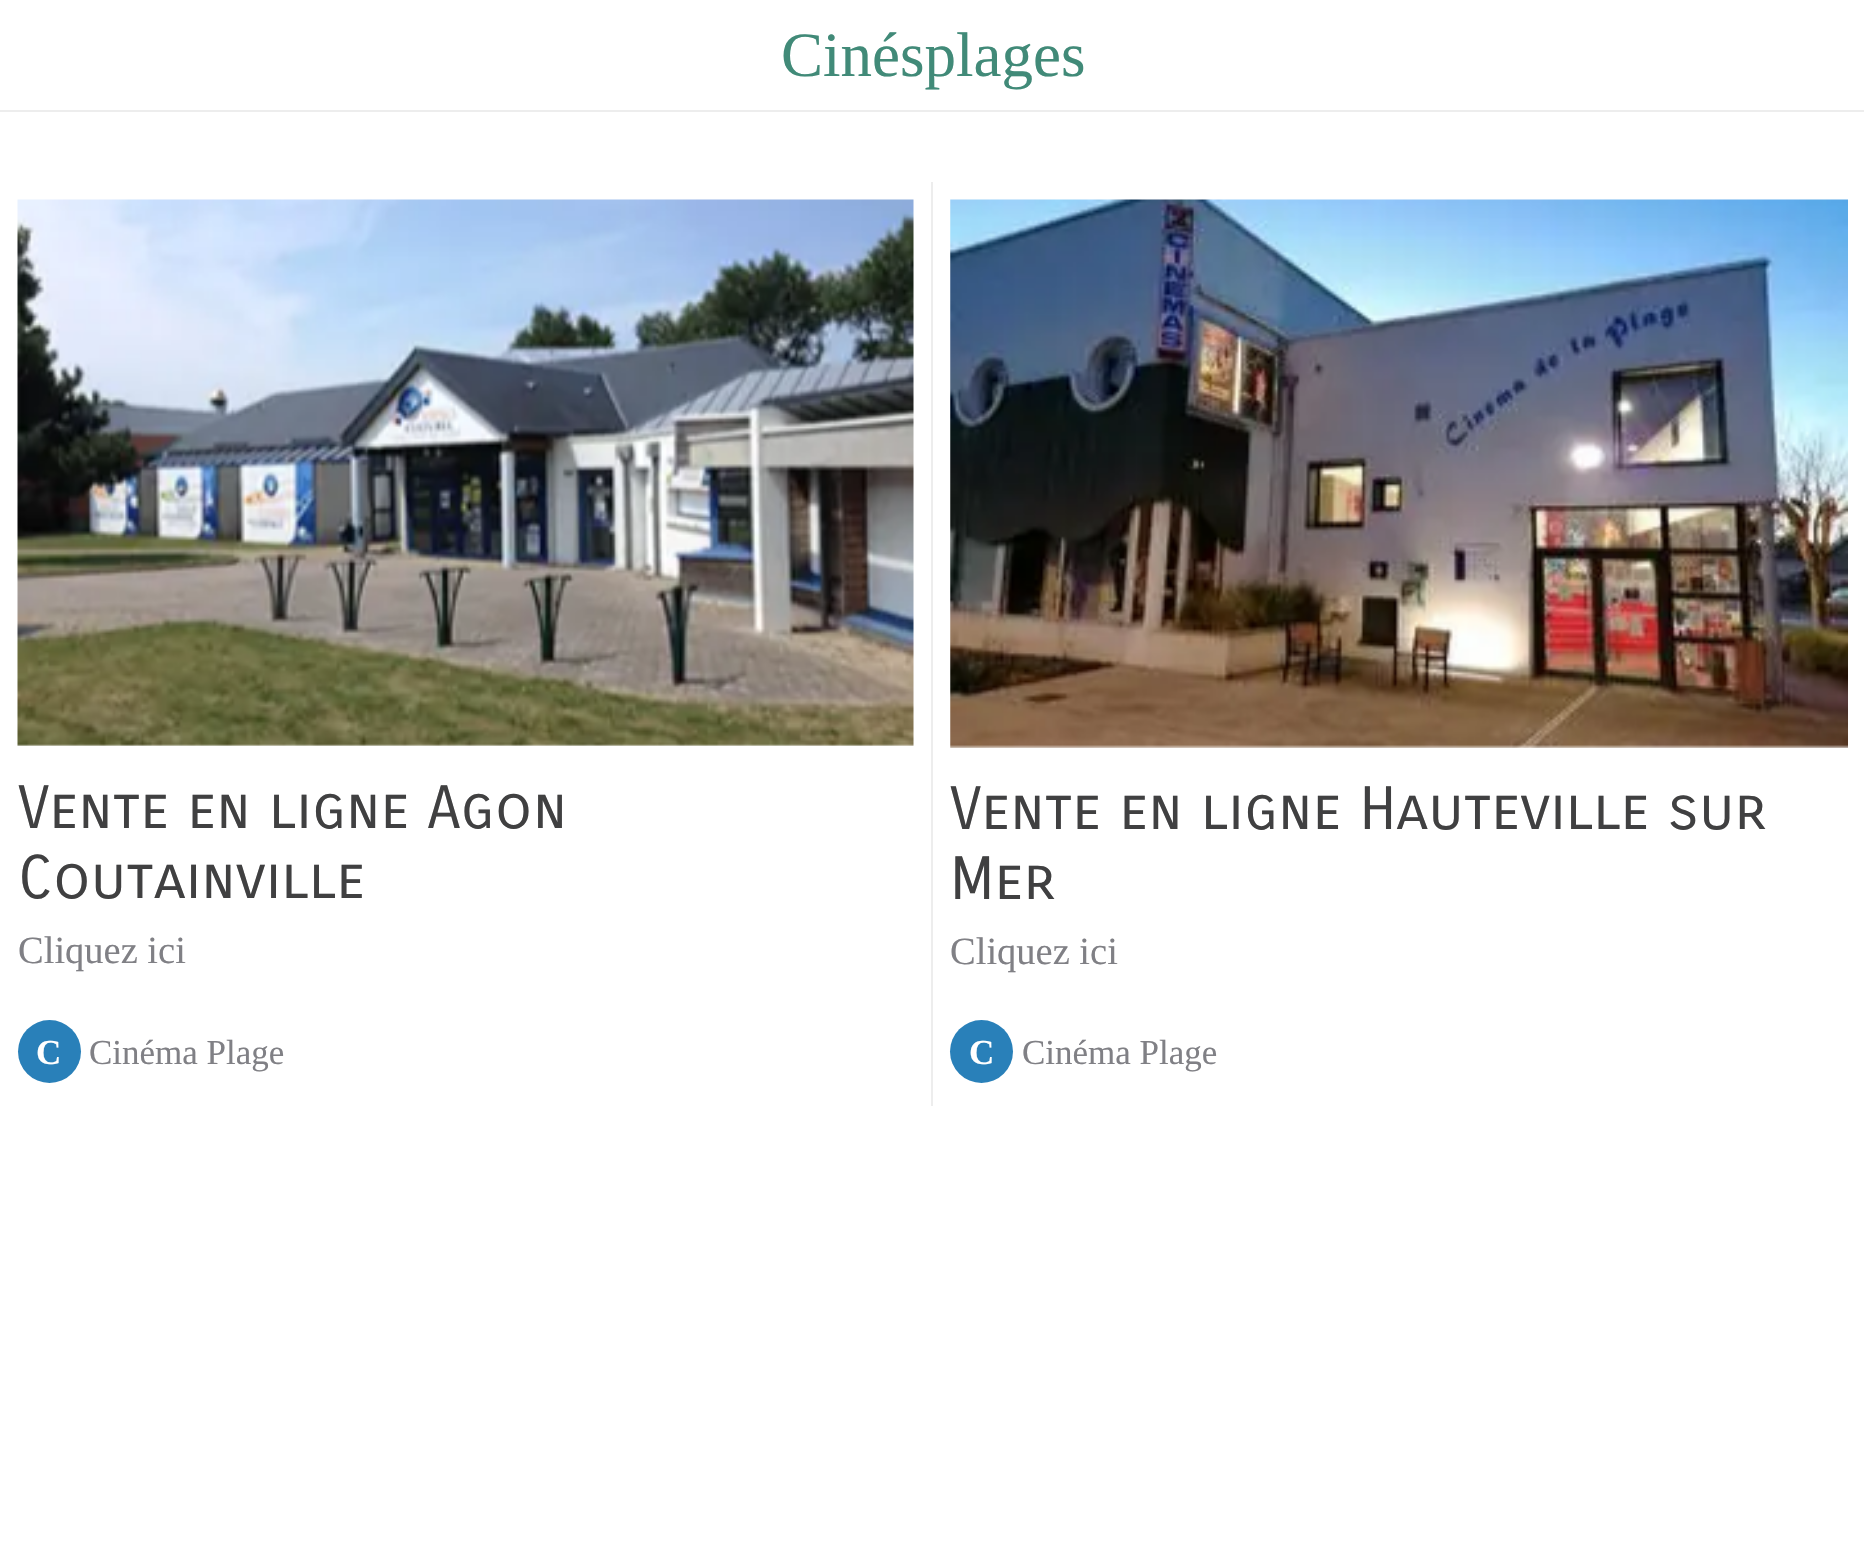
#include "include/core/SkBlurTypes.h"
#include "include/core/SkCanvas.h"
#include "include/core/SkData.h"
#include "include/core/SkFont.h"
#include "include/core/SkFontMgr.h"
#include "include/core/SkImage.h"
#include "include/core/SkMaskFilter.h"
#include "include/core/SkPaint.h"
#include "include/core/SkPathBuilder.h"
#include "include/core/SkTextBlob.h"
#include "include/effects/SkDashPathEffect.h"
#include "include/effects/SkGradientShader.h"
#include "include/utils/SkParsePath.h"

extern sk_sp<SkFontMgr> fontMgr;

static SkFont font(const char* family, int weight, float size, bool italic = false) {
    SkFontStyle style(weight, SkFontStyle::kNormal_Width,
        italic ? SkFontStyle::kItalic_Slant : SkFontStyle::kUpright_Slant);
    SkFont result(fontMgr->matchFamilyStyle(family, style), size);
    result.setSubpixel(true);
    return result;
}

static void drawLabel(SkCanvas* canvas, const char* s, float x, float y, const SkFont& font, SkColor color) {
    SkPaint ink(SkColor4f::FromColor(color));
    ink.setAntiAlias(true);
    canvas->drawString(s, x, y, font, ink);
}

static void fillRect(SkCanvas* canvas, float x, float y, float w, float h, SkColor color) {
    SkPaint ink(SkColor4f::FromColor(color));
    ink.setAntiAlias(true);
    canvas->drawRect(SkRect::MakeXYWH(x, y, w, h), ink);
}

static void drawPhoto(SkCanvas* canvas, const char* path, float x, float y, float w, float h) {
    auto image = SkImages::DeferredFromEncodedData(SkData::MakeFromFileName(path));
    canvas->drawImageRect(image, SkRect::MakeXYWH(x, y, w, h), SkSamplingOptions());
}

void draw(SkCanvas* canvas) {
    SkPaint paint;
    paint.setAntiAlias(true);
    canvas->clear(0xFFFFFFFF);
    fillRect(canvas, 0, 110, 1864, 2, 0xFFEDEDED);
    SkFont font1 = font("Liberation Serif", 400, 63);
    drawLabel(canvas, "Cinésplages", 781, 76, font1, 0xFF418A78);
    fillRect(canvas, 931, 182, 2, 924, 0xFFEDEDED);
    drawPhoto(canvas, "assets/img1.png", 17, 199, 897, 547);
    SkFont font2 = font("Carrois Gothic SC", 400, 59.5f);
    drawLabel(canvas, "Vente en ligne Agon", 18, 828, font2, 0xFF404041);
    drawLabel(canvas, "Coutainville", 18, 898, font2, 0xFF404041);
    SkFont font3 = font("Liberation Serif", 400, 38.5f);
    drawLabel(canvas, "Cliquez ici", 18, 963, font3, 0xFF808085);
    paint.setColor(0xFF2980B9);
    canvas->drawCircle(49.5f, 1051.5f, 31.5f, paint);
    SkFont font4 = font("Liberation Serif", 700, 35);
    drawLabel(canvas, "C", 36, 1064, font4, 0xFFFFFFFF);
    SkFont font5 = font("Liberation Serif", 400, 35);
    drawLabel(canvas, "Cinéma Plage", 89, 1064, font5, 0xFF808085);
    drawPhoto(canvas, "assets/img2.png", 950, 199, 898, 549);
    drawLabel(canvas, "Vente en ligne Hauteville sur", 950, 829, font2, 0xFF404041);
    drawLabel(canvas, "Mer", 950, 899, font2, 0xFF404041);
    drawLabel(canvas, "Cliquez ici", 950, 964, font3, 0xFF808085);
    canvas->drawCircle(981.5f, 1051.5f, 31.5f, paint);
    drawLabel(canvas, "C", 969, 1064, font4, 0xFFFFFFFF);
    drawLabel(canvas, "Cinéma Plage", 1022, 1064, font5, 0xFF808085);
}
